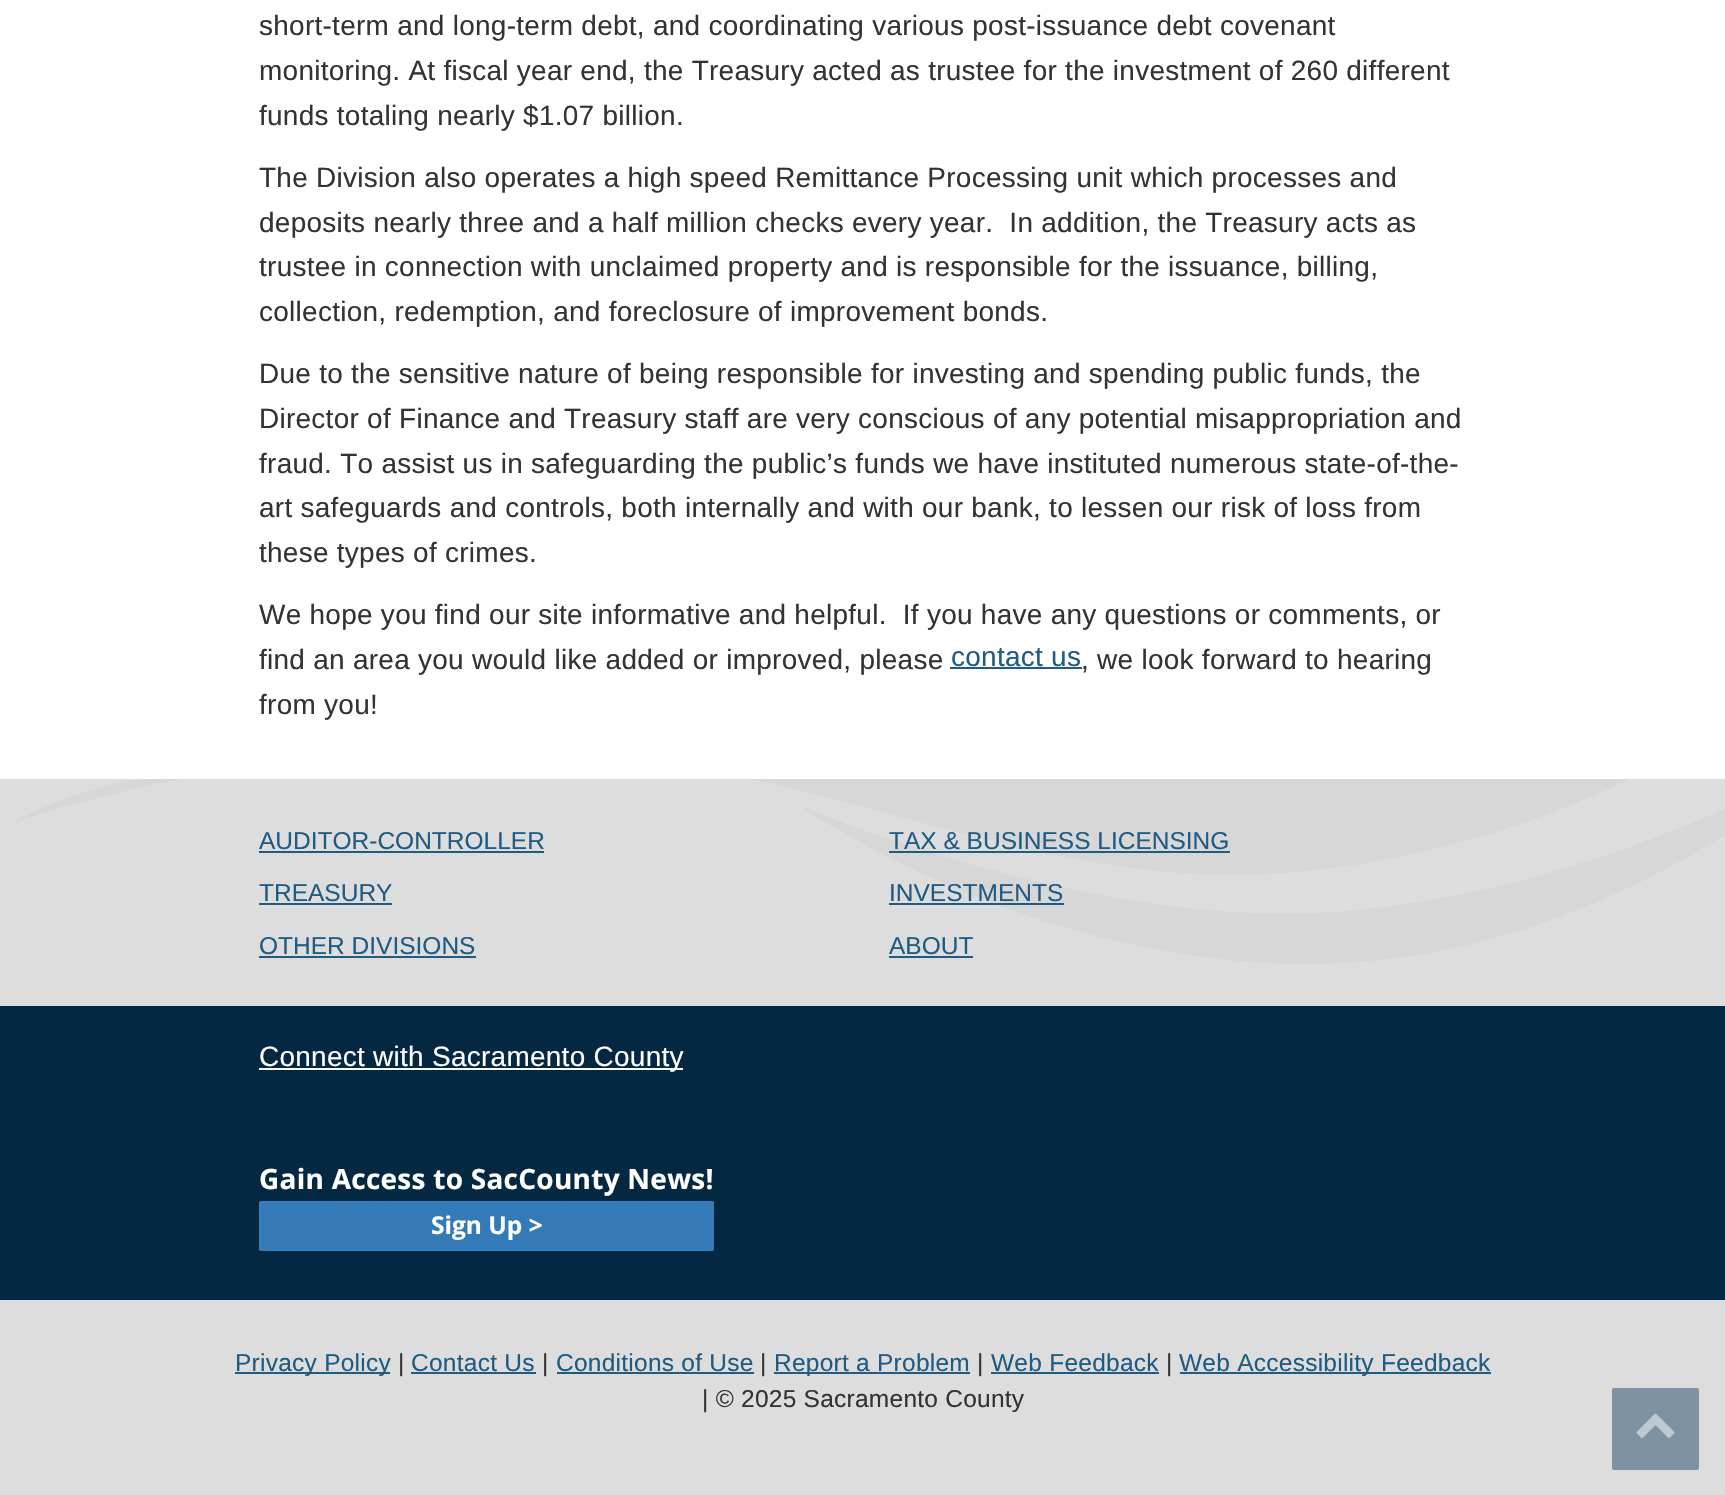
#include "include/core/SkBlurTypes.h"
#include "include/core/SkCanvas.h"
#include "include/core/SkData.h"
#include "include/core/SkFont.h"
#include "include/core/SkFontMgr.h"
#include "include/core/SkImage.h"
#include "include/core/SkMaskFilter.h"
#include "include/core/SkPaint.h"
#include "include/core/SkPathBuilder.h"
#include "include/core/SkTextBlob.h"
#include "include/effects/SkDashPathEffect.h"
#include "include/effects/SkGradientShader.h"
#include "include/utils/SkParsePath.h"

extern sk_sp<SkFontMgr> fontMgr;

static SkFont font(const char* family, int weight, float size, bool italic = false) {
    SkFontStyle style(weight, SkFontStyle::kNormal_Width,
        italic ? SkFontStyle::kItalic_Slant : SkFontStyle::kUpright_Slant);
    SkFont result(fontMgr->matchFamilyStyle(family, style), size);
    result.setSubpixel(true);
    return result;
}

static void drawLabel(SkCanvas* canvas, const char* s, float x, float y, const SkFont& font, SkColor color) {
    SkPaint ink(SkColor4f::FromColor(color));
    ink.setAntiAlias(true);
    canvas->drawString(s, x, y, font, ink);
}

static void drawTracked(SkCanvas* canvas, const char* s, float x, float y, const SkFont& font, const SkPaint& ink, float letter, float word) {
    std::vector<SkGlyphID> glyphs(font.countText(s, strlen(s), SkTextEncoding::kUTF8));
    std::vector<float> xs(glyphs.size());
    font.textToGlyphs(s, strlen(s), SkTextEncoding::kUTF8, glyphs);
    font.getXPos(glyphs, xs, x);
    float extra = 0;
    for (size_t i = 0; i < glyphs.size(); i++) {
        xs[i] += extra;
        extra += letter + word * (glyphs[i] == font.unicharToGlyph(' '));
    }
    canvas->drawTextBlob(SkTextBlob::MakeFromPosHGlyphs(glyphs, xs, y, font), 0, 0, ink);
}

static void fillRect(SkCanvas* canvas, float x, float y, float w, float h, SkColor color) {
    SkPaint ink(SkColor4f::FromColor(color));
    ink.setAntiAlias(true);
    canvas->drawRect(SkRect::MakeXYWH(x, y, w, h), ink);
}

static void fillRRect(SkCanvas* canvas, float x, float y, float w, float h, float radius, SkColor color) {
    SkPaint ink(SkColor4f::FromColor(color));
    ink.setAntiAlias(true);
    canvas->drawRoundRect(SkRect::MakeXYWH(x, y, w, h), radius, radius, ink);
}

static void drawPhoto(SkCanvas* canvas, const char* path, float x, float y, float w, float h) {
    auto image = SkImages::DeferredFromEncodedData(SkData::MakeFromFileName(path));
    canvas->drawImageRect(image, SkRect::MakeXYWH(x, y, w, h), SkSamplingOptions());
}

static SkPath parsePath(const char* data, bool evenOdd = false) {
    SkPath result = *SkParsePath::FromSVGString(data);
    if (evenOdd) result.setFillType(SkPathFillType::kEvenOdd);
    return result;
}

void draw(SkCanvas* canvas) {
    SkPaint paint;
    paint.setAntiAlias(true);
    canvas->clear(0xFFFFFFFF);
    SkFont font1 = font("Liberation Sans", 400, 27.95f);
    paint.setColor(0xFF333333);
    drawTracked(canvas, "short-term and long-term debt, and coordinating various post-issuance debt covenant", 259, 35, font1, paint, 0.28f, 0);
    drawTracked(canvas, "monitoring. At fiscal year end, the Treasury acted as trustee for the investment of 260 different", 259, 80, font1, paint, 0.28f, 0);
    drawTracked(canvas, "funds totaling nearly $1.07 billion.", 259, 125, font1, paint, 0.28f, 0);
    drawTracked(canvas, "The Division also operates a high speed Remittance Processing unit which processes and", 259, 187, font1, paint, 0.28f, 0);
    drawTracked(canvas, "deposits nearly three and a half million checks every year.  In addition, the Treasury acts as", 259, 232, font1, paint, 0.28f, 0);
    drawTracked(canvas, "trustee in connection with unclaimed property and is responsible for the issuance, billing,", 259, 276, font1, paint, 0.28f, 0);
    drawTracked(canvas, "collection, redemption, and foreclosure of improvement bonds.", 259, 321, font1, paint, 0.28f, 0);
    drawTracked(canvas, "Due to the sensitive nature of being responsible for investing and spending public funds, the", 259, 383, font1, paint, 0.28f, 0);
    drawTracked(canvas, "Director of Finance and Treasury staff are very conscious of any potential misappropriation and", 259, 428, font1, paint, 0.28f, 0);
    drawTracked(canvas, "fraud. To assist us in safeguarding the public’s funds we have instituted numerous state-of-the-", 259, 473, font1, paint, 0.28f, 0);
    drawTracked(canvas, "art safeguards and controls, both internally and with our bank, to lessen our risk of loss from", 259, 517, font1, paint, 0.28f, 0);
    drawTracked(canvas, "these types of crimes.", 259, 562, font1, paint, 0.28f, 0);
    drawTracked(canvas, "We hope you find our site informative and helpful.  If you have any questions or comments, or", 259, 624, font1, paint, 0.28f, 0);
    drawTracked(canvas, "find an area you would like added or improved, please", 259, 669, font1, paint, 0.28f, 0);
    paint.setColor(0xFF1F5B83);
    drawTracked(canvas, "contact us", 951, 666, font1, paint, 0.28f, 0);
    fillRect(canvas, 950, 667, 132, 2, 0xFF1F5B83);
    paint.setColor(0xFF333333);
    drawTracked(canvas, ", we look forward to hearing", 1081, 669, font1, paint, 0.28f, 0);
    drawTracked(canvas, "from you!", 259, 714, font1, paint, 0.28f, 0);
    fillRect(canvas, 0, 779, 1725, 227, 0xFFDDDDDD);
    paint.setColor(0xFFD7D7D7);
    canvas->drawPath(parsePath("M106 779H173H147C126 779 59 796 9 824C9 824 78 800 178 779Z"), paint);
    canvas->drawPath(parsePath("M752 779C909 815 1055 868 1199 874C1426 885 1630 779 1630 779Z"), paint);
    canvas->drawPath(parsePath("M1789 779C1711 818 1530 899 1332 912C1085 929 796 804 796 804C796 804 1047 978 1341 963C1566 952 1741 829 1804 779Z"), paint);
    SkFont font2 = font("Liberation Sans", 400, 24.5f);
    drawLabel(canvas, "AUDITOR-CONTROLLER", 259, 849, font2, 0xFF1F5B83);
    fillRect(canvas, 259, 851, 285, 2, 0xFF1F5B83);
    drawLabel(canvas, "TAX & BUSINESS LICENSING", 889, 849, font2, 0xFF1F5B83);
    fillRect(canvas, 889, 851, 341, 2, 0xFF1F5B83);
    drawLabel(canvas, "TREASURY", 259, 901, font2, 0xFF1F5B83);
    fillRect(canvas, 259, 903, 133, 2, 0xFF1F5B83);
    drawLabel(canvas, "INVESTMENTS", 889, 901, font2, 0xFF1F5B83);
    fillRect(canvas, 889, 903, 175, 2, 0xFF1F5B83);
    drawLabel(canvas, "OTHER DIVISIONS", 259, 954, font2, 0xFF1F5B83);
    fillRect(canvas, 259, 956, 217, 2, 0xFF1F5B83);
    drawLabel(canvas, "ABOUT", 889, 954, font2, 0xFF1F5B83);
    fillRect(canvas, 889, 956, 84, 2, 0xFF1F5B83);
    fillRect(canvas, 0, 1006, 1725, 294, 0xFF042841);
    fillRect(canvas, 259, 1068, 424, 2, 0xFFFFFFFF);
    paint.setColor(0xFFFFFFFF);
    drawTracked(canvas, "Connect with Sacramento County", 259, 1066, font1, paint, 0.28f, 0);
    SkFont font3 = font("Open Sans", 700, 27.95f);
    drawTracked(canvas, "Gain Access to SacCounty News!", 259, 1189, font3, paint, 0.28f, 0);
    paint.setColor(0xFF347AB7);
    canvas->drawRoundRect(SkRect::MakeXYWH(260, 1202, 453, 48), 1, 1, paint);
    paint.setStroke(true);
    paint.setStrokeWidth(2);
    paint.setColor(0xFF357EBD);
    canvas->drawRoundRect(SkRect::MakeXYWH(260, 1202, 453, 48), 1, 1, paint);
    SkFont font4 = font("Open Sans", 700, 24.5f);
    drawLabel(canvas, "Sign Up >", 431, 1234, font4, 0xFFFFFFFF);
    fillRect(canvas, 0, 1300, 1725, 195, 0xFFDDDDDD);
    fillRect(canvas, 235, 1372, 155, 2, 0xFF1F5B83);
    paint.setStroke(false);
    paint.setColor(0xFF1F5B83);
    drawTracked(canvas, "Privacy Policy", 235, 1371, font2, paint, 0.25f, 0);
    paint.setColor(0xFF333333);
    drawTracked(canvas, "|", 398, 1371, font2, paint, 0.25f, 0);
    paint.setColor(0xFF1F5B83);
    drawTracked(canvas, "Contact Us", 411, 1371, font2, paint, 0.25f, 0);
    fillRect(canvas, 411, 1372, 125, 2, 0xFF1F5B83);
    paint.setColor(0xFF333333);
    drawTracked(canvas, "|", 542, 1371, font2, paint, 0.25f, 0);
    paint.setColor(0xFF1F5B83);
    drawTracked(canvas, "Conditions of Use", 556, 1371, font2, paint, 0.25f, 0);
    fillRect(canvas, 557, 1372, 197, 2, 0xFF1F5B83);
    paint.setColor(0xFF333333);
    drawTracked(canvas, "|", 760, 1371, font2, paint, 0.25f, 0);
    fillRect(canvas, 774, 1372, 196, 2, 0xFF1F5B83);
    paint.setColor(0xFF1F5B83);
    drawTracked(canvas, "Report a Problem", 774, 1371, font2, paint, 0.25f, 0);
    paint.setColor(0xFF333333);
    drawTracked(canvas, "|", 977, 1371, font2, paint, 0.25f, 0);
    paint.setColor(0xFF1F5B83);
    drawTracked(canvas, "Web Feedback", 991, 1371, font2, paint, 0.25f, 0);
    fillRect(canvas, 991, 1372, 168, 2, 0xFF1F5B83);
    paint.setColor(0xFF333333);
    drawTracked(canvas, "|", 1166, 1371, font2, paint, 0.25f, 0);
    fillRect(canvas, 1180, 1372, 311, 2, 0xFF1F5B83);
    paint.setColor(0xFF1F5B83);
    drawTracked(canvas, "Web Accessibility Feedback", 1179, 1371, font2, paint, 0.25f, 0);
    paint.setColor(0xFF333333);
    drawTracked(canvas, "| © 2025 Sacramento County", 702, 1407, font2, paint, 0.25f, 0);
    fillRRect(canvas, 1612, 1388, 87, 82, 2, 0xFF7E92A4);
    drawPhoto(canvas, "assets/img1.png", 1636, 1413, 39, 25);
}
